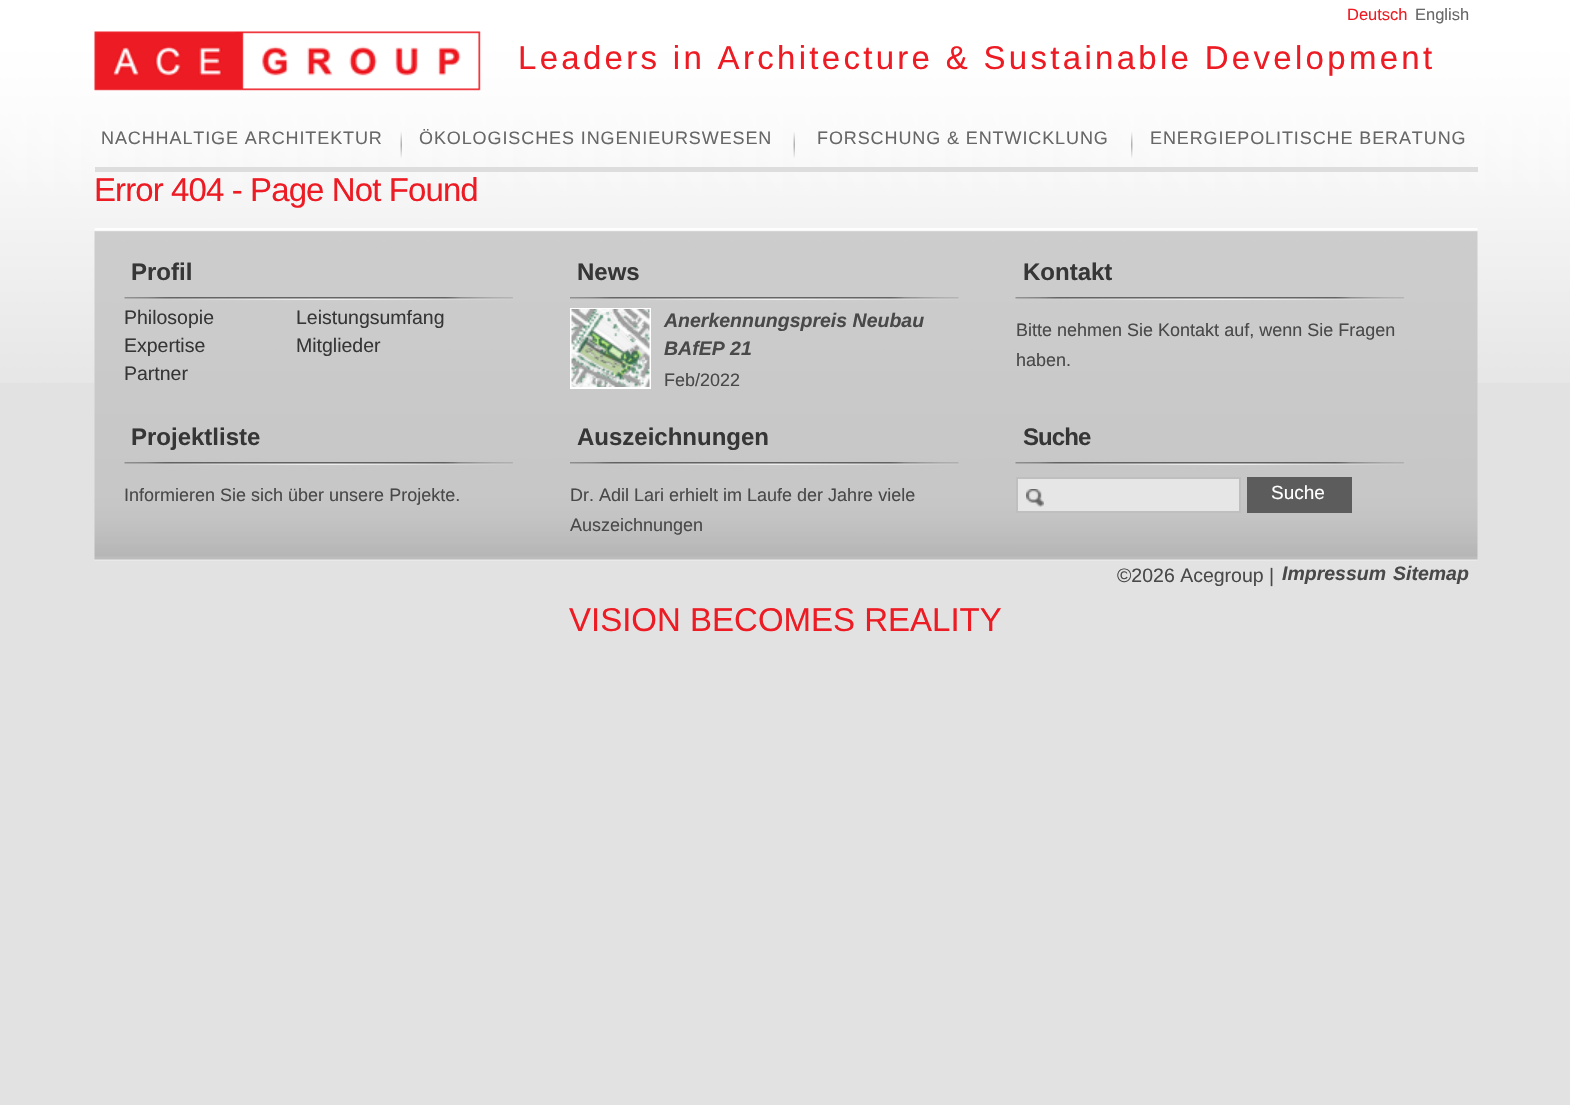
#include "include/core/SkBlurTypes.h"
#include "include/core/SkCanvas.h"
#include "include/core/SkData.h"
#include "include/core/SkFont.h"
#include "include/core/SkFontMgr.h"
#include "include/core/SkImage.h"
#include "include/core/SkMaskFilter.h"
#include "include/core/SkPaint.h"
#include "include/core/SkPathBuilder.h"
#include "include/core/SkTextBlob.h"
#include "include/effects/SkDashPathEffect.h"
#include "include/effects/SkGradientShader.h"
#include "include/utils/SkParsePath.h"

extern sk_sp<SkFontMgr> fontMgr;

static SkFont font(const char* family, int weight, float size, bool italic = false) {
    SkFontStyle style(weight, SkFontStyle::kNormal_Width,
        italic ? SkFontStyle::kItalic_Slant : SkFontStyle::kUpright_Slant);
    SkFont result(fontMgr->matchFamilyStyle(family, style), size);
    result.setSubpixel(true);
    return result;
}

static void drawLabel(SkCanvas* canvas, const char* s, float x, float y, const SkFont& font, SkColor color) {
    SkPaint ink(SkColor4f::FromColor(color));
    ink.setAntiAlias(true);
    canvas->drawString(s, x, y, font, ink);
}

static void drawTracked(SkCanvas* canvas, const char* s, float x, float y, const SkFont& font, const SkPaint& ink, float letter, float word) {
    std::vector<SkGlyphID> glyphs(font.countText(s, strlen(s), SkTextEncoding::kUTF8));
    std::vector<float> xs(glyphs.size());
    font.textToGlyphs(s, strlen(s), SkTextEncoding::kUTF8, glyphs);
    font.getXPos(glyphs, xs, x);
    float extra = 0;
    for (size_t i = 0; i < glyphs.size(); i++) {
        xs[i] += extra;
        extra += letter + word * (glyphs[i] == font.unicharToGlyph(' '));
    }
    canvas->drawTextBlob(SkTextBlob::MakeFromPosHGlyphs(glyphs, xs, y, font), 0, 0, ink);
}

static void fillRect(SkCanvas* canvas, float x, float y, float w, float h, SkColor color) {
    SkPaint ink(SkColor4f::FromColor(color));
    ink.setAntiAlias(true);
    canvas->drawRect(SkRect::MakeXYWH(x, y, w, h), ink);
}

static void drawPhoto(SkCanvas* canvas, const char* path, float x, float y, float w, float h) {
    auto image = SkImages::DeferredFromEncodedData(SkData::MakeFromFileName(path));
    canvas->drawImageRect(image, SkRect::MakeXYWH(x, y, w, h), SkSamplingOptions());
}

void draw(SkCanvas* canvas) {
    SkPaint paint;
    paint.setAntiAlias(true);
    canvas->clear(0xFFE2E2E2);
    drawPhoto(canvas, "assets/img1.png", 0, 0, 1570, 383);
    SkFont font1 = font("Liberation Sans", 400, 16.5f);
    drawLabel(canvas, "Deutsch", 1347, 20, font1, 0xFFED1C24);
    drawLabel(canvas, "English", 1415, 20, font1, 0xFF676767);
    drawPhoto(canvas, "assets/img2.png", 94, 31, 387, 60);
    SkFont font2 = font("Liberation Sans", 400, 33);
    paint.setColor(0xFFED1C24);
    drawTracked(canvas, "Leaders in Architecture & Sustainable Development", 518, 69, font2, paint, 3.3f, 0);
    drawPhoto(canvas, "assets/img3.png", 400, 132, 2, 26);
    fillRect(canvas, 95, 167, 1383, 5, 0xFFDDDDDD);
    SkFont font3 = font("Liberation Sans", 400, 18);
    paint.setColor(0xFF676767);
    drawTracked(canvas, "NACHHALTIGE ARCHITEKTUR", 101, 144, font3, paint, 0.9f, 0);
    drawPhoto(canvas, "assets/img4.png", 793, 132, 2, 26);
    drawTracked(canvas, "ÖKOLOGISCHES INGENIEURSWESEN", 419, 144, font3, paint, 0.9f, 0);
    drawPhoto(canvas, "assets/img5.png", 1131, 132, 2, 26);
    drawTracked(canvas, "FORSCHUNG & ENTWICKLUNG", 817, 144, font3, paint, 0.9f, 0);
    drawTracked(canvas, "ENERGIEPOLITISCHE BERATUNG", 1150, 144, font3, paint, 0.9f, 0);
    paint.setColor(0xFFED1C24);
    drawTracked(canvas, "Error 404 - Page Not Found", 94, 201, font2, paint, -0.9f, 0);
    drawPhoto(canvas, "assets/img6.png", 94, 228, 1384, 333);
    drawPhoto(canvas, "assets/img7.png", 124, 297, 389, 3);
    SkFont font4 = font("Liberation Sans", 700, 24);
    drawLabel(canvas, "Profil", 131, 280, font4, 0xFF363636);
    SkFont font5 = font("Liberation Sans", 400, 19.5f);
    drawLabel(canvas, "Philosopie", 124, 324, font5, 0xFF363636);
    drawLabel(canvas, "Leistungsumfang", 296, 324, font5, 0xFF363636);
    drawLabel(canvas, "Expertise", 124, 352, font5, 0xFF363636);
    drawLabel(canvas, "Mitglieder", 296, 352, font5, 0xFF363636);
    drawLabel(canvas, "Partner", 124, 380, font5, 0xFF363636);
    drawPhoto(canvas, "assets/img8.png", 124, 462, 389, 3);
    drawLabel(canvas, "Projektliste", 131, 445, font4, 0xFF363636);
    drawLabel(canvas, "Informieren Sie sich über unsere Projekte.", 124, 501, font3, 0xFF494949);
    drawPhoto(canvas, "assets/img9.png", 570, 297, 389, 3);
    drawLabel(canvas, "News", 577, 280, font4, 0xFF363636);
    paint.setStroke(true);
    paint.setStrokeWidth(2);
    paint.setColor(0xFFFFFFFF);
    canvas->drawRect(SkRect::MakeXYWH(571, 309, 79, 79), paint);
    drawPhoto(canvas, "assets/img10.png", 571, 309, 79, 78);
    SkFont font6 = font("Liberation Sans", 700, 19.5f, true);
    drawLabel(canvas, "Anerkennungspreis Neubau", 664, 327, font6, 0xFF494949);
    drawLabel(canvas, "BAfEP 21", 664, 355, font6, 0xFF494949);
    drawLabel(canvas, "Feb/2022", 664, 386, font3, 0xFF494949);
    drawPhoto(canvas, "assets/img11.png", 570, 462, 389, 3);
    drawLabel(canvas, "Auszeichnungen", 577, 445, font4, 0xFF363636);
    drawLabel(canvas, "Dr. Adil Lari erhielt im Laufe der Jahre viele", 570, 501, font3, 0xFF494949);
    drawLabel(canvas, "Auszeichnungen", 570, 531, font3, 0xFF494949);
    drawPhoto(canvas, "assets/img7.png", 1015, 297, 389, 3);
    drawLabel(canvas, "Kontakt", 1023, 280, font4, 0xFF363636);
    drawLabel(canvas, "Bitte nehmen Sie Kontakt auf, wenn Sie Fragen", 1016, 336, font3, 0xFF494949);
    drawLabel(canvas, "haben.", 1016, 366, font3, 0xFF494949);
    drawPhoto(canvas, "assets/img8.png", 1015, 462, 389, 3);
    paint.setStroke(false);
    paint.setColor(0xFF363636);
    drawTracked(canvas, "Suche", 1023, 445, font4, paint, -0.9f, 0);
    fillRect(canvas, 1018, 479, 221, 32, 0xFFE6E6E6);
    drawPhoto(canvas, "assets/img12.png", 1026, 489, 18, 18);
    paint.setStroke(true);
    paint.setColor(0xFFBFBFBF);
    canvas->drawRect(SkRect::MakeXYWH(1017, 478, 223, 34), paint);
    fillRect(canvas, 1247, 477, 105, 36, 0xFF5C5C5C);
    SkFont font7 = font("Liberation Sans", 400, 19);
    drawLabel(canvas, "Suche", 1271, 499, font7, 0xFFFFFFFF);
    drawLabel(canvas, "©2026 Acegroup |", 1117, 582, font5, 0xFF494949);
    drawLabel(canvas, "Impressum", 1282, 580, font6, 0xFF494949);
    drawLabel(canvas, "Sitemap", 1393, 580, font6, 0xFF494949);
    drawLabel(canvas, "VISION BECOMES REALITY", 569, 631, font2, 0xFFED1C24);
}
